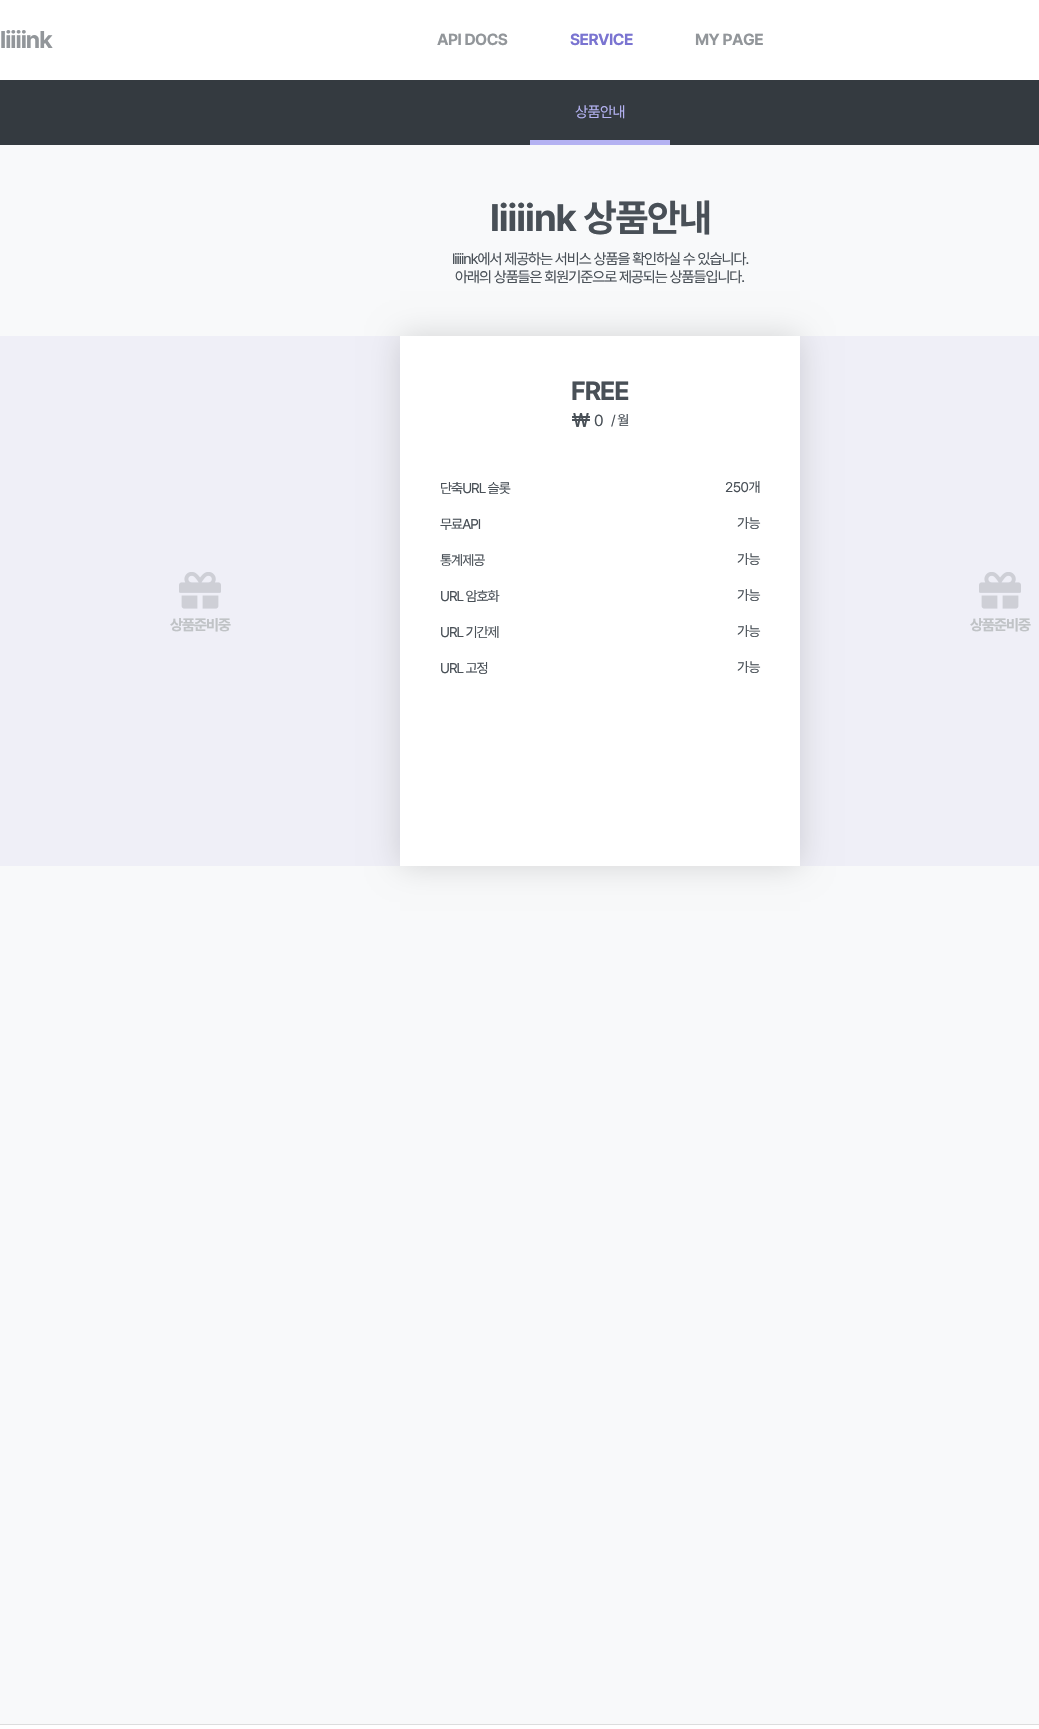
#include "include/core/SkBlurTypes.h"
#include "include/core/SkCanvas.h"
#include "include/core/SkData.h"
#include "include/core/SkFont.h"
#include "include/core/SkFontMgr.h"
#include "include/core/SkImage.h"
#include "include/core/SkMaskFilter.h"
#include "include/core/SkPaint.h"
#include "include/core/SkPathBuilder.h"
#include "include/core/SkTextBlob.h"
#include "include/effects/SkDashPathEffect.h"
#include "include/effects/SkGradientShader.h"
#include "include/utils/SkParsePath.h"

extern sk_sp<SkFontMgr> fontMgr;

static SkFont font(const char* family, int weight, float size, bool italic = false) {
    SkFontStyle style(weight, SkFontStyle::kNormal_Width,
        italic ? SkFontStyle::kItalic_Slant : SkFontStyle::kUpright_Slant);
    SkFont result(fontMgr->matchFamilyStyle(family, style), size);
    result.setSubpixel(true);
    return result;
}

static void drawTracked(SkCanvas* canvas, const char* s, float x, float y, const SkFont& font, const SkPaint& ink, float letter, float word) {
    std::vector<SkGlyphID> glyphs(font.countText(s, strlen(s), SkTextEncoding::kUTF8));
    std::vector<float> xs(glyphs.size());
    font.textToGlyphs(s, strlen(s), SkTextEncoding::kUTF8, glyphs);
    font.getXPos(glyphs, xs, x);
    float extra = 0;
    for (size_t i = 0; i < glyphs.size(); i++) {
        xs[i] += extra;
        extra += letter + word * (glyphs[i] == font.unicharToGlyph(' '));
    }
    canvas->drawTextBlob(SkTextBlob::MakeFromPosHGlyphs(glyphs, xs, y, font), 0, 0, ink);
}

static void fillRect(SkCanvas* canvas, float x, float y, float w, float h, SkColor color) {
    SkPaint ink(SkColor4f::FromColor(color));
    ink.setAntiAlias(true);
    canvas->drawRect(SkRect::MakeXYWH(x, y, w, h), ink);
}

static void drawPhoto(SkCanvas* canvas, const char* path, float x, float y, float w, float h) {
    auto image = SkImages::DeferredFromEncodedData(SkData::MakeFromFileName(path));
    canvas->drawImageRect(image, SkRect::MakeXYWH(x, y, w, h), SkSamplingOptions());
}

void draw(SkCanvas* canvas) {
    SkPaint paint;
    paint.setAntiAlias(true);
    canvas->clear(0xFFF8F9FA);
    fillRect(canvas, 0, 0, 1039, 80, 0xFFFFFFFF);
    SkFont font1 = font("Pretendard", 700, 24);
    paint.setColor(0xFF92969A);
    drawTracked(canvas, "liiiink", 0, 48, font1, paint, -1, 0);
    SkFont font2 = font("Pretendard", 700, 16);
    drawTracked(canvas, "API DOCS", 437, 45, font2, paint, -0.5f, 0);
    paint.setColor(0xFF7A74D1);
    drawTracked(canvas, "SERVICE", 570, 45, font2, paint, -0.5f, 0);
    paint.setColor(0xFF92969A);
    drawTracked(canvas, "MY PAGE", 695, 45, font2, paint, -0.5f, 0);
    fillRect(canvas, 0, 80, 1039, 65, 0xFF343A40);
    fillRect(canvas, 530, 140, 140, 5, 0xFFB4B2F2);
    SkFont font3 = font("Pretendard", 400, 15);
    paint.setColor(0xFFB4B2F2);
    drawTracked(canvas, "상품안내", 575, 117, font3, paint, -0.5f, 0);
    SkFont font4 = font("Pretendard", 700, 38);
    paint.setColor(0xFF495057);
    drawTracked(canvas, "liiiink 상품안내", 490, 231, font4, paint, -1, 0);
    drawTracked(canvas, "liiiink에서 제공하는 서비스 상품을 확인하실 수 있습니다.", 452, 264, font3, paint, -1, 0);
    drawTracked(canvas, "아래의 상품들은 회원기준으로 제공되는 상품들입니다.", 455, 282, font3, paint, -1, 0);
    fillRect(canvas, 0, 336, 400, 530, 0xFFEFEFF7);
    drawPhoto(canvas, "assets/img1.png", 179, 572, 42, 37);
    SkFont font5 = font("Pretendard", 700, 15);
    paint.setColor(0xFFC0C3C6);
    drawTracked(canvas, "상품준비중", 170, 630, font5, paint, -1, 0);
    fillRect(canvas, 800, 336, 239, 530, 0xFFEFEFF7);
    paint.setColor(0x26000000);
    paint.setMaskFilter(SkMaskFilter::MakeBlur(kNormal_SkBlurStyle, 15));
    canvas->drawRect(SkRect::MakeXYWH(400, 336, 400, 530), paint);
    paint.setMaskFilter(nullptr);
    fillRect(canvas, 400, 336, 400, 530, 0xFFFFFFFF);
    SkFont font6 = font("Pretendard", 700, 26);
    paint.setColor(0xFF495057);
    drawTracked(canvas, "FREE", 571, 400, font6, paint, -1, 0);
    drawPhoto(canvas, "assets/img2.png", 572, 413, 18, 14);
    SkFont font7 = font("Pretendard", 400, 16);
    drawTracked(canvas, "0", 594, 426, font7, paint, -1, 0);
    SkFont font8 = font("Pretendard", 400, 14);
    drawTracked(canvas, "/ 월", 611, 425, font8, paint, -1, 0);
    drawTracked(canvas, "단축URL 슬롯", 440, 493, font8, paint, -1, 0);
    drawTracked(canvas, "250개", 725, 492, font8, paint, -0.5f, 0);
    drawTracked(canvas, "무료API", 440, 529, font8, paint, -1, 0);
    drawTracked(canvas, "가능", 737, 528, font8, paint, -0.5f, 0);
    drawTracked(canvas, "통계제공", 440, 565, font8, paint, -1, 0);
    drawTracked(canvas, "가능", 737, 564, font8, paint, -0.5f, 0);
    drawTracked(canvas, "URL 암호화", 440, 601, font8, paint, -1, 0);
    drawTracked(canvas, "가능", 737, 600, font8, paint, -0.5f, 0);
    drawTracked(canvas, "URL 기간제", 440, 637, font8, paint, -1, 0);
    drawTracked(canvas, "가능", 737, 636, font8, paint, -0.5f, 0);
    drawTracked(canvas, "URL 고정", 440, 673, font8, paint, -1, 0);
    drawTracked(canvas, "가능", 737, 672, font8, paint, -0.5f, 0);
    drawPhoto(canvas, "assets/img1.png", 979, 572, 42, 37);
    paint.setColor(0xFFC0C3C6);
    drawTracked(canvas, "상품준비중", 970, 630, font5, paint, -1, 0);
    fillRect(canvas, 0, 1725, 1039, 4, 0xFFFFFFFF);
    fillRect(canvas, 0, 1724, 1039, 1, 0xFFDDDDDD);
}
